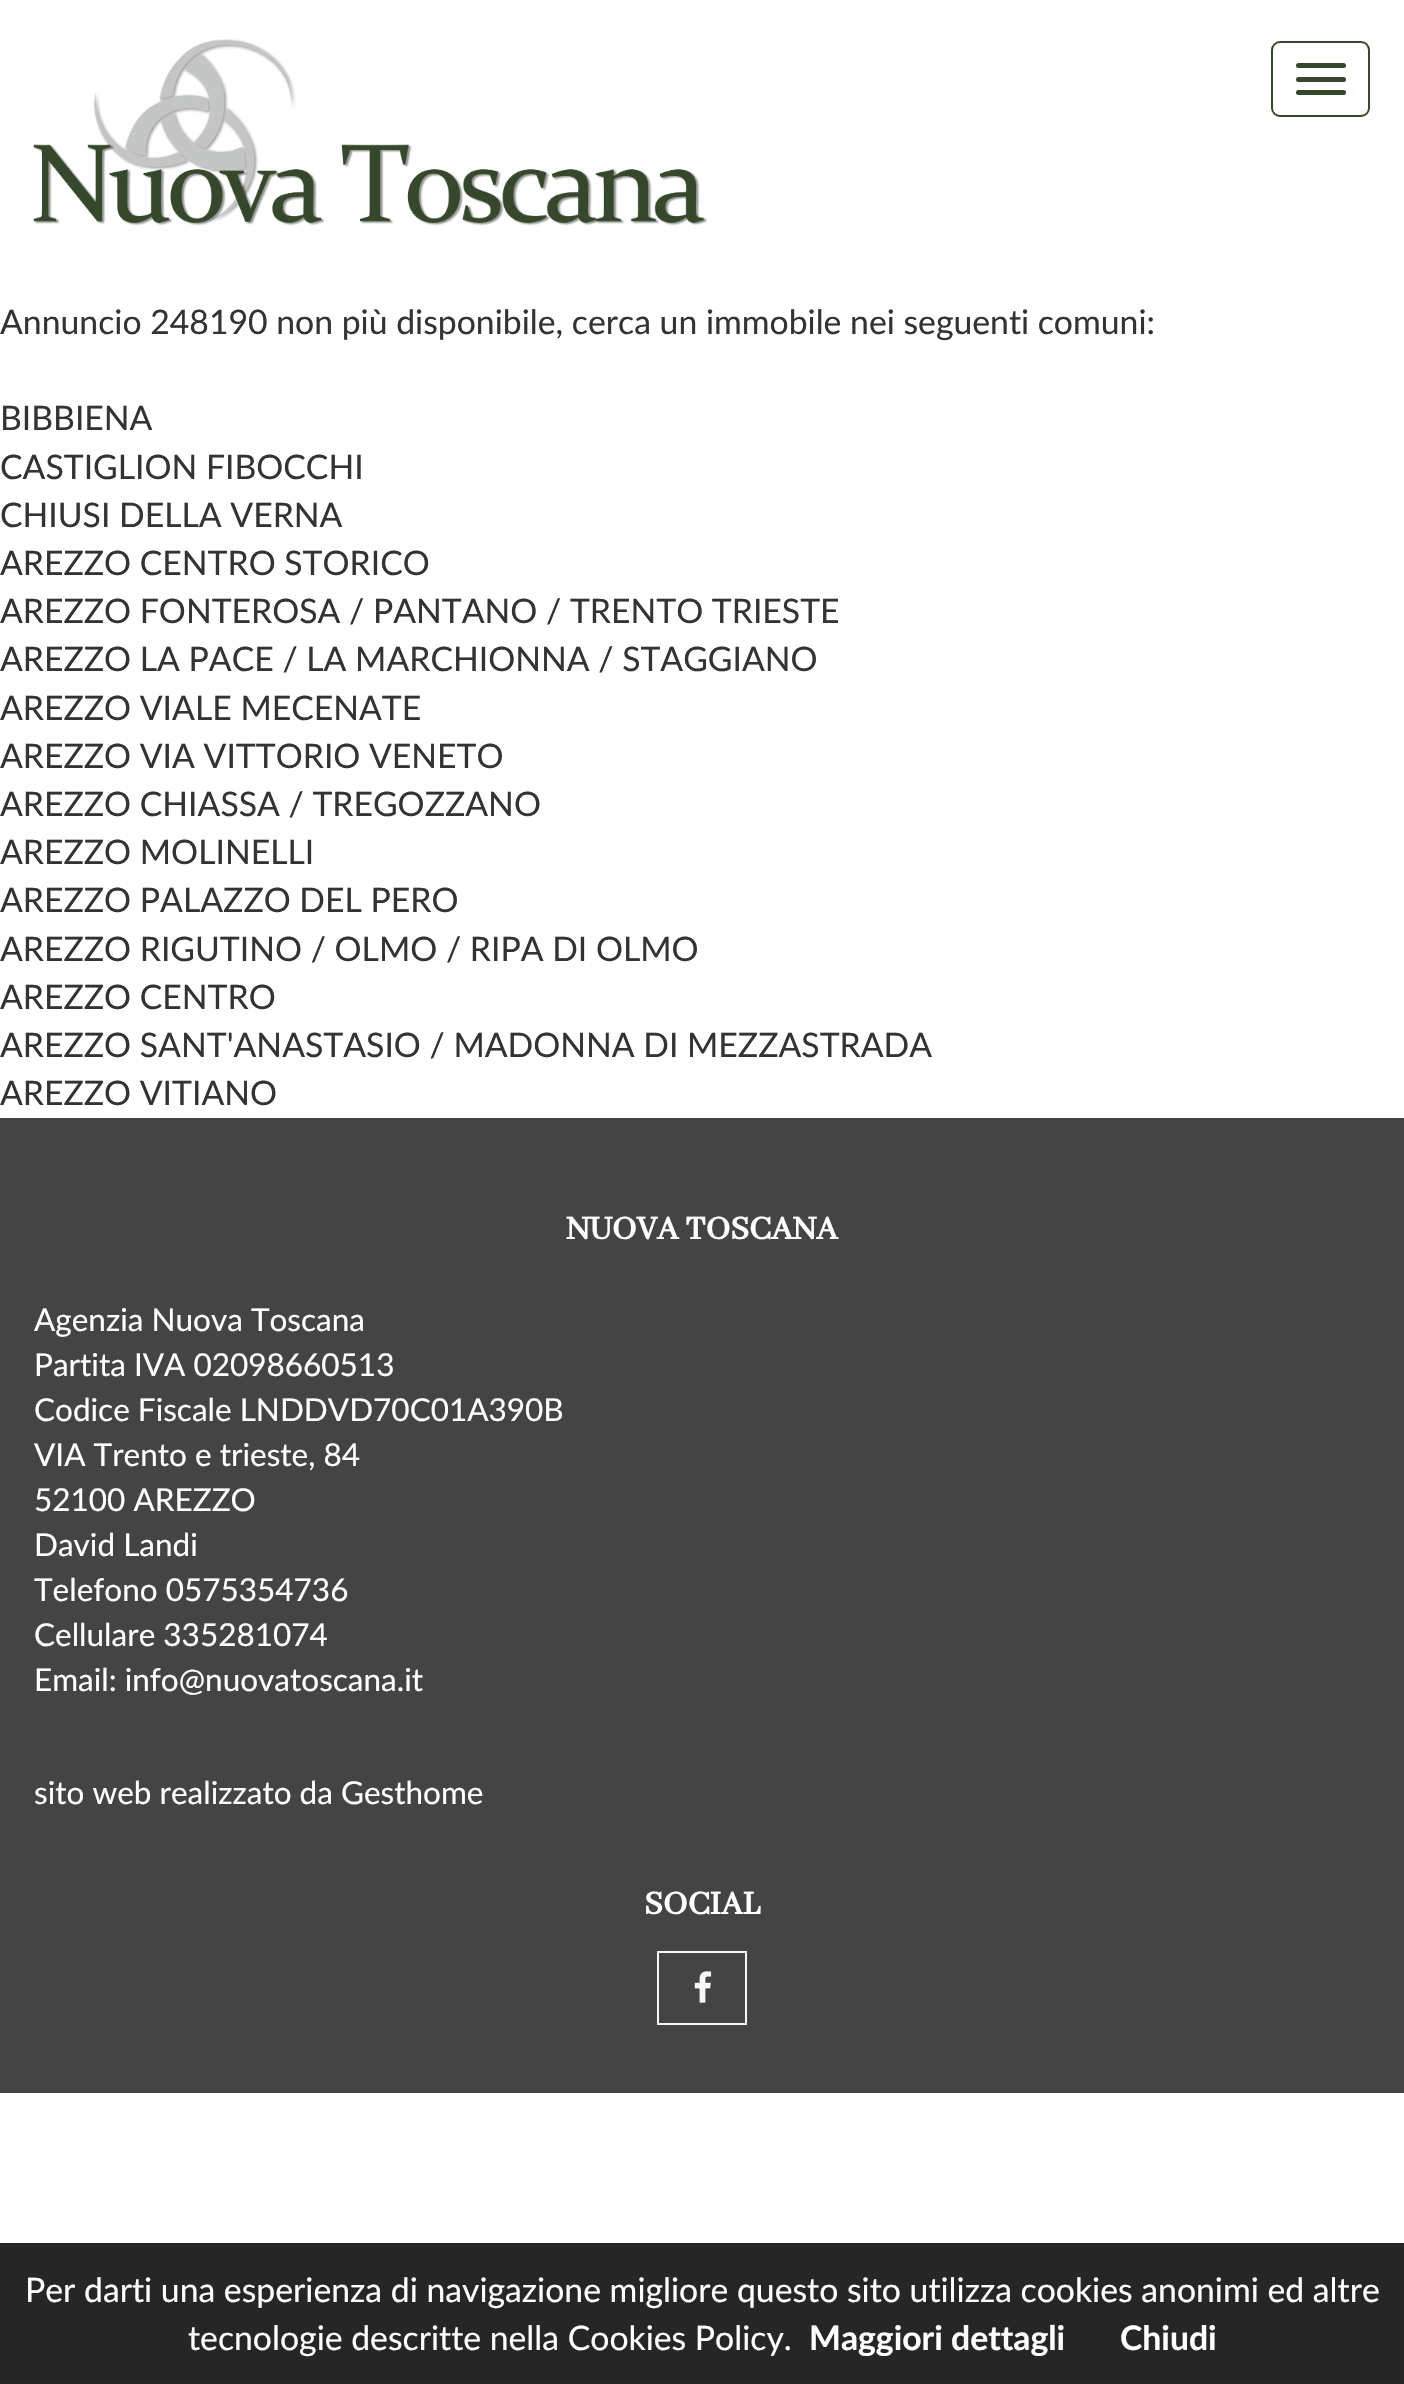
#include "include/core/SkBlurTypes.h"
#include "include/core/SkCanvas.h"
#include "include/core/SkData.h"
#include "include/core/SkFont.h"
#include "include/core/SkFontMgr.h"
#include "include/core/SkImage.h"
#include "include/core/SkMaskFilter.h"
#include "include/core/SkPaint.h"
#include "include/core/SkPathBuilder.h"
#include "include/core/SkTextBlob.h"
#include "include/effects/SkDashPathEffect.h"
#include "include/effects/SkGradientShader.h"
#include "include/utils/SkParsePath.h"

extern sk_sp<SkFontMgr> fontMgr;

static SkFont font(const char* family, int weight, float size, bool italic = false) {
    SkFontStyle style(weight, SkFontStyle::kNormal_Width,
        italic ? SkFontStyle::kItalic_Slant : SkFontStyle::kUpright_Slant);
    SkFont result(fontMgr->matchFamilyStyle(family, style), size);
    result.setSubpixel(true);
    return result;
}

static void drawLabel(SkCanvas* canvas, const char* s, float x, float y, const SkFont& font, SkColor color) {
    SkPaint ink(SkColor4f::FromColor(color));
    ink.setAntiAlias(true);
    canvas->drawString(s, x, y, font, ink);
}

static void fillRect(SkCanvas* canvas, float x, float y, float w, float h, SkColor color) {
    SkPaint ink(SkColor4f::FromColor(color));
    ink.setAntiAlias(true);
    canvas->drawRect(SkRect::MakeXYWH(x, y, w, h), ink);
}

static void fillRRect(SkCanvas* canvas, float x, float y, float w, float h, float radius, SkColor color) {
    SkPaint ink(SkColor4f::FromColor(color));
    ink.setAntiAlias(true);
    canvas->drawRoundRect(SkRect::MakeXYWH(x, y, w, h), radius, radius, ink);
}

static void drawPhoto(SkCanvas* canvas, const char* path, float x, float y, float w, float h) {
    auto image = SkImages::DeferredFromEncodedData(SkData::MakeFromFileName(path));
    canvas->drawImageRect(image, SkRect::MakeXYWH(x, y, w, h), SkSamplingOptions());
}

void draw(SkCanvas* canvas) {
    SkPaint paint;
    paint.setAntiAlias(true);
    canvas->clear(0xFFFFFFFF);
    drawPhoto(canvas, "assets/img1.png", 33, 39, 674, 187);
    paint.setStroke(true);
    paint.setStrokeWidth(2);
    paint.setColor(0xFF35482C);
    canvas->drawRoundRect(SkRect::MakeXYWH(1272, 42, 97, 74), 8, 8, paint);
    fillRRect(canvas, 1296, 63, 50, 5, 2.5f, 0xFF35482C);
    fillRRect(canvas, 1296, 77, 50, 5, 2.5f, 0xFF35482C);
    fillRRect(canvas, 1296, 90, 50, 5, 2.5f, 0xFF35482C);
    SkFont font1 = font("Lato", 400, 33.75f);
    drawLabel(canvas, "Annuncio 248190 non più disponibile, cerca un immobile nei seguenti comuni:", 0, 334, font1, 0xFF333333);
    drawLabel(canvas, "BIBBIENA", 0, 430, font1, 0xFF333333);
    drawLabel(canvas, "CASTIGLION FIBOCCHI", 0, 479, font1, 0xFF333333);
    drawLabel(canvas, "CHIUSI DELLA VERNA", 0, 527, font1, 0xFF333333);
    drawLabel(canvas, "AREZZO CENTRO STORICO", 0, 575, font1, 0xFF333333);
    drawLabel(canvas, "AREZZO FONTEROSA / PANTANO / TRENTO TRIESTE", 0, 623, font1, 0xFF333333);
    drawLabel(canvas, "AREZZO LA PACE / LA MARCHIONNA / STAGGIANO", 0, 671, font1, 0xFF333333);
    drawLabel(canvas, "AREZZO VIALE MECENATE", 0, 720, font1, 0xFF333333);
    drawLabel(canvas, "AREZZO VIA VITTORIO VENETO", 0, 768, font1, 0xFF333333);
    drawLabel(canvas, "AREZZO CHIASSA / TREGOZZANO", 0, 816, font1, 0xFF333333);
    drawLabel(canvas, "AREZZO MOLINELLI", 0, 864, font1, 0xFF333333);
    drawLabel(canvas, "AREZZO PALAZZO DEL PERO", 0, 912, font1, 0xFF333333);
    drawLabel(canvas, "AREZZO RIGUTINO / OLMO / RIPA DI OLMO", 0, 961, font1, 0xFF333333);
    drawLabel(canvas, "AREZZO CENTRO", 0, 1009, font1, 0xFF333333);
    drawLabel(canvas, "AREZZO SANT'ANASTASIO / MADONNA DI MEZZASTRADA", 0, 1057, font1, 0xFF333333);
    drawLabel(canvas, "AREZZO VITIANO", 0, 1105, font1, 0xFF333333);
    fillRect(canvas, 0, 1118, 1404, 975, 0xFF444444);
    SkFont font2 = font("Abhaya Libre", 700, 36);
    drawLabel(canvas, "NUOVA TOSCANA", 566, 1239, font2, 0xFFFFFFFF);
    SkFont font3 = font("Lato", 400, 31.5f);
    drawLabel(canvas, "Agenzia Nuova Toscana", 34, 1331, font3, 0xFFFFFFFF);
    drawLabel(canvas, "Partita IVA 02098660513", 34, 1376, font3, 0xFFFFFFFF);
    drawLabel(canvas, "Codice Fiscale LNDDVD70C01A390B", 34, 1421, font3, 0xFFFFFFFF);
    drawLabel(canvas, "VIA Trento e trieste, 84", 34, 1466, font3, 0xFFFFFFFF);
    drawLabel(canvas, "52100 AREZZO", 34, 1511, font3, 0xFFFFFFFF);
    drawLabel(canvas, "David Landi", 34, 1556, font3, 0xFFFFFFFF);
    drawLabel(canvas, "Telefono 0575354736", 34, 1601, font3, 0xFFFFFFFF);
    drawLabel(canvas, "Cellulare 335281074", 34, 1646, font3, 0xFFFFFFFF);
    drawLabel(canvas, "Email: info@nuovatoscana.it", 34, 1691, font3, 0xFFFFFFFF);
    drawLabel(canvas, "sito web realizzato da Gesthome", 34, 1804, font3, 0xFFFFFFFF);
    drawLabel(canvas, "SOCIAL", 644, 1914, font2, 0xFFFFFFFF);
    paint.setColor(0xFFF8F8F8);
    canvas->drawRect(SkRect::MakeXYWH(658, 1952, 88, 72), paint);
    drawPhoto(canvas, "assets/img2.png", 694, 1971, 18, 32);
    fillRect(canvas, 0, 2243, 1404, 141, 0xFF262626);
    drawLabel(canvas, "Per darti una esperienza di navigazione migliore questo sito utilizza cookies anonimi ed altre", 25, 2302, font1, 0xFFFFFFFF);
    drawLabel(canvas, "tecnologie descritte nella Cookies Policy.", 188, 2350, font1, 0xFFFFFFFF);
    SkFont font4 = font("Lato", 700, 33.75f);
    drawLabel(canvas, "Maggiori dettagli", 809, 2350, font4, 0xFFFFFFFF);
    drawLabel(canvas, "Chiudi", 1120, 2350, font4, 0xFFFFFFFF);
}
